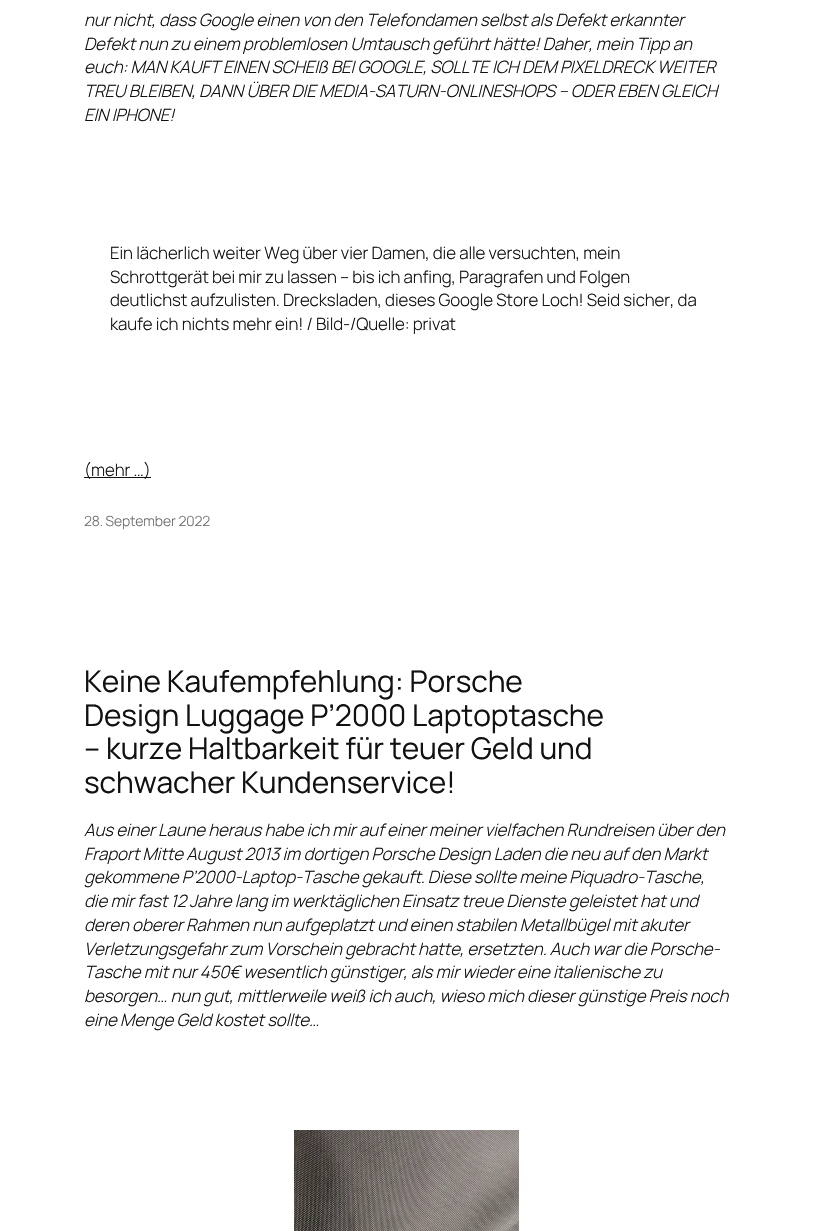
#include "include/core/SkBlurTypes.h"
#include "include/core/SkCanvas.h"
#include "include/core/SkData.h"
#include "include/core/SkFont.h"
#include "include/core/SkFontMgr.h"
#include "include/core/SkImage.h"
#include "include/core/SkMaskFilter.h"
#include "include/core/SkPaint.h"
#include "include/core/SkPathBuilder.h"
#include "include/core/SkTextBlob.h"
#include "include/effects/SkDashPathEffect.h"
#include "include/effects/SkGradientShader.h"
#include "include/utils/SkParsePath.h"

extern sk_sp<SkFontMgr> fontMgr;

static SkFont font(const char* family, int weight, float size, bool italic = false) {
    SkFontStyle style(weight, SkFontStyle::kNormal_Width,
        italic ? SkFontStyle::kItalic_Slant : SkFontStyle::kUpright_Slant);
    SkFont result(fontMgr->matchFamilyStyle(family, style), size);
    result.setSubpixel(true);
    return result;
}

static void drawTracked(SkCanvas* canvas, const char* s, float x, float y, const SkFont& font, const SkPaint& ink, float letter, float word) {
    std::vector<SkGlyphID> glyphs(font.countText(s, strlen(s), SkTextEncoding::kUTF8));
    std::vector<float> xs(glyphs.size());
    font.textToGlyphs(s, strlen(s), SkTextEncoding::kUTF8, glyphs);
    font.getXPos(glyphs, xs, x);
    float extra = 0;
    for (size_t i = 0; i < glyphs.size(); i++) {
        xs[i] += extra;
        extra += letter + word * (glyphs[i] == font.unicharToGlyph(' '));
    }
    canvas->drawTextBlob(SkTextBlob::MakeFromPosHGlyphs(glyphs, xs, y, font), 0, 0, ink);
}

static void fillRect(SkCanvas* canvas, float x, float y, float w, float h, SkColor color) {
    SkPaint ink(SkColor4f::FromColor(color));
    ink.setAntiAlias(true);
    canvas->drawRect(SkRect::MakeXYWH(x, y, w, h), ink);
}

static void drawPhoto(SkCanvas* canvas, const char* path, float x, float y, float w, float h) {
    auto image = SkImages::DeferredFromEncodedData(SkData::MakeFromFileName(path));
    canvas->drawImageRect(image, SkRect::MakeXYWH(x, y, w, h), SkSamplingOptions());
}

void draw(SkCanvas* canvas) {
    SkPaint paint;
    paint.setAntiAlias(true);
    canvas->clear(0xFFFFFFFF);
    SkFont font1 = font("Manrope", 300, 16.95f, true);
    paint.setColor(0xFF111111);
    drawTracked(canvas, "nur nicht, dass Google einen von den Telefondamen selbst als Defekt erkannter", 84, 26, font1, paint, -0.1f, 0);
    drawTracked(canvas, "Defekt nun zu einem problemlosen Umtausch geführt hätte! Daher, mein Tipp an", 84, 50, font1, paint, -0.1f, 0);
    drawTracked(canvas, "euch: MAN KAUFT EINEN SCHEIß BEI GOOGLE, SOLLTE ICH DEM PIXELDRECK WEITER", 84, 73, font1, paint, -0.1f, 0);
    drawTracked(canvas, "TREU BLEIBEN, DANN ÜBER DIE MEDIA-SATURN-ONLINESHOPS – ODER EBEN GLEICH", 84, 97, font1, paint, -0.1f, 0);
    drawTracked(canvas, "EIN IPHONE!", 84, 121, font1, paint, -0.1f, 0);
    SkFont font2 = font("Manrope", 300, 16.95f);
    drawTracked(canvas, "Ein lächerlich weiter Weg über vier Damen, die alle versuchten, mein", 110, 259, font2, paint, -0.1f, 0);
    drawTracked(canvas, "Schrottgerät bei mir zu lassen – bis ich anfing, Paragrafen und Folgen", 110, 283, font2, paint, -0.1f, 0);
    drawTracked(canvas, "deutlichst aufzulisten. Drecksladen, dieses Google Store Loch! Seid sicher, da", 110, 306, font2, paint, -0.1f, 0);
    drawTracked(canvas, "kaufe ich nichts mehr ein! / Bild-/Quelle: privat", 110, 330, font2, paint, -0.1f, 0);
    fillRect(canvas, 84, 477, 67, 1, 0xFF111111);
    drawTracked(canvas, "(mehr …)", 84, 476, font2, paint, -0.1f, 0);
    SkFont font3 = font("Manrope", 300, 14);
    paint.setColor(0xFF686868);
    drawTracked(canvas, "28. September 2022", 84, 526, font3, paint, -0.1f, 0);
    SkFont font4 = font("Manrope", 400, 29.9f);
    paint.setColor(0xFF111111);
    drawTracked(canvas, "Keine Kaufempfehlung: Porsche", 84, 692, font4, paint, -0.1f, 0);
    drawTracked(canvas, "Design Luggage P’2000 Laptoptasche", 84, 726, font4, paint, -0.1f, 0);
    drawTracked(canvas, "– kurze Haltbarkeit für teuer Geld und", 84, 759, font4, paint, -0.1f, 0);
    drawTracked(canvas, "schwacher Kundenservice!", 84, 793, font4, paint, -0.1f, 0);
    drawTracked(canvas, "Aus einer Laune heraus habe ich mir auf einer meiner vielfachen Rundreisen über den", 84, 836, font1, paint, -0.1f, 0);
    drawTracked(canvas, "Fraport Mitte August 2013 im dortigen Porsche Design Laden die neu auf den Markt", 84, 860, font1, paint, -0.1f, 0);
    drawTracked(canvas, "gekommene P’2000-Laptop-Tasche gekauft. Diese sollte meine Piquadro-Tasche,", 84, 883, font1, paint, -0.1f, 0);
    drawTracked(canvas, "die mir fast 12 Jahre lang im werktäglichen Einsatz treue Dienste geleistet hat und", 84, 907, font1, paint, -0.1f, 0);
    drawTracked(canvas, "deren oberer Rahmen nun aufgeplatzt und einen stabilen Metallbügel mit akuter", 84, 931, font1, paint, -0.1f, 0);
    drawTracked(canvas, "Verletzungsgefahr zum Vorschein gebracht hatte, ersetzten. Auch war die Porsche-", 84, 955, font1, paint, -0.1f, 0);
    drawTracked(canvas, "Tasche mit nur 450€ wesentlich günstiger, als mir wieder eine italienische zu", 84, 978, font1, paint, -0.1f, 0);
    drawTracked(canvas, "besorgen… nun gut, mittlerweile weiß ich auch, wieso mich dieser günstige Preis noch", 84, 1002, font1, paint, -0.1f, 0);
    drawTracked(canvas, "eine Menge Geld kostet sollte…", 84, 1026, font1, paint, -0.1f, 0);
    drawPhoto(canvas, "assets/img1.png", 294, 1130, 225, 101);
}
